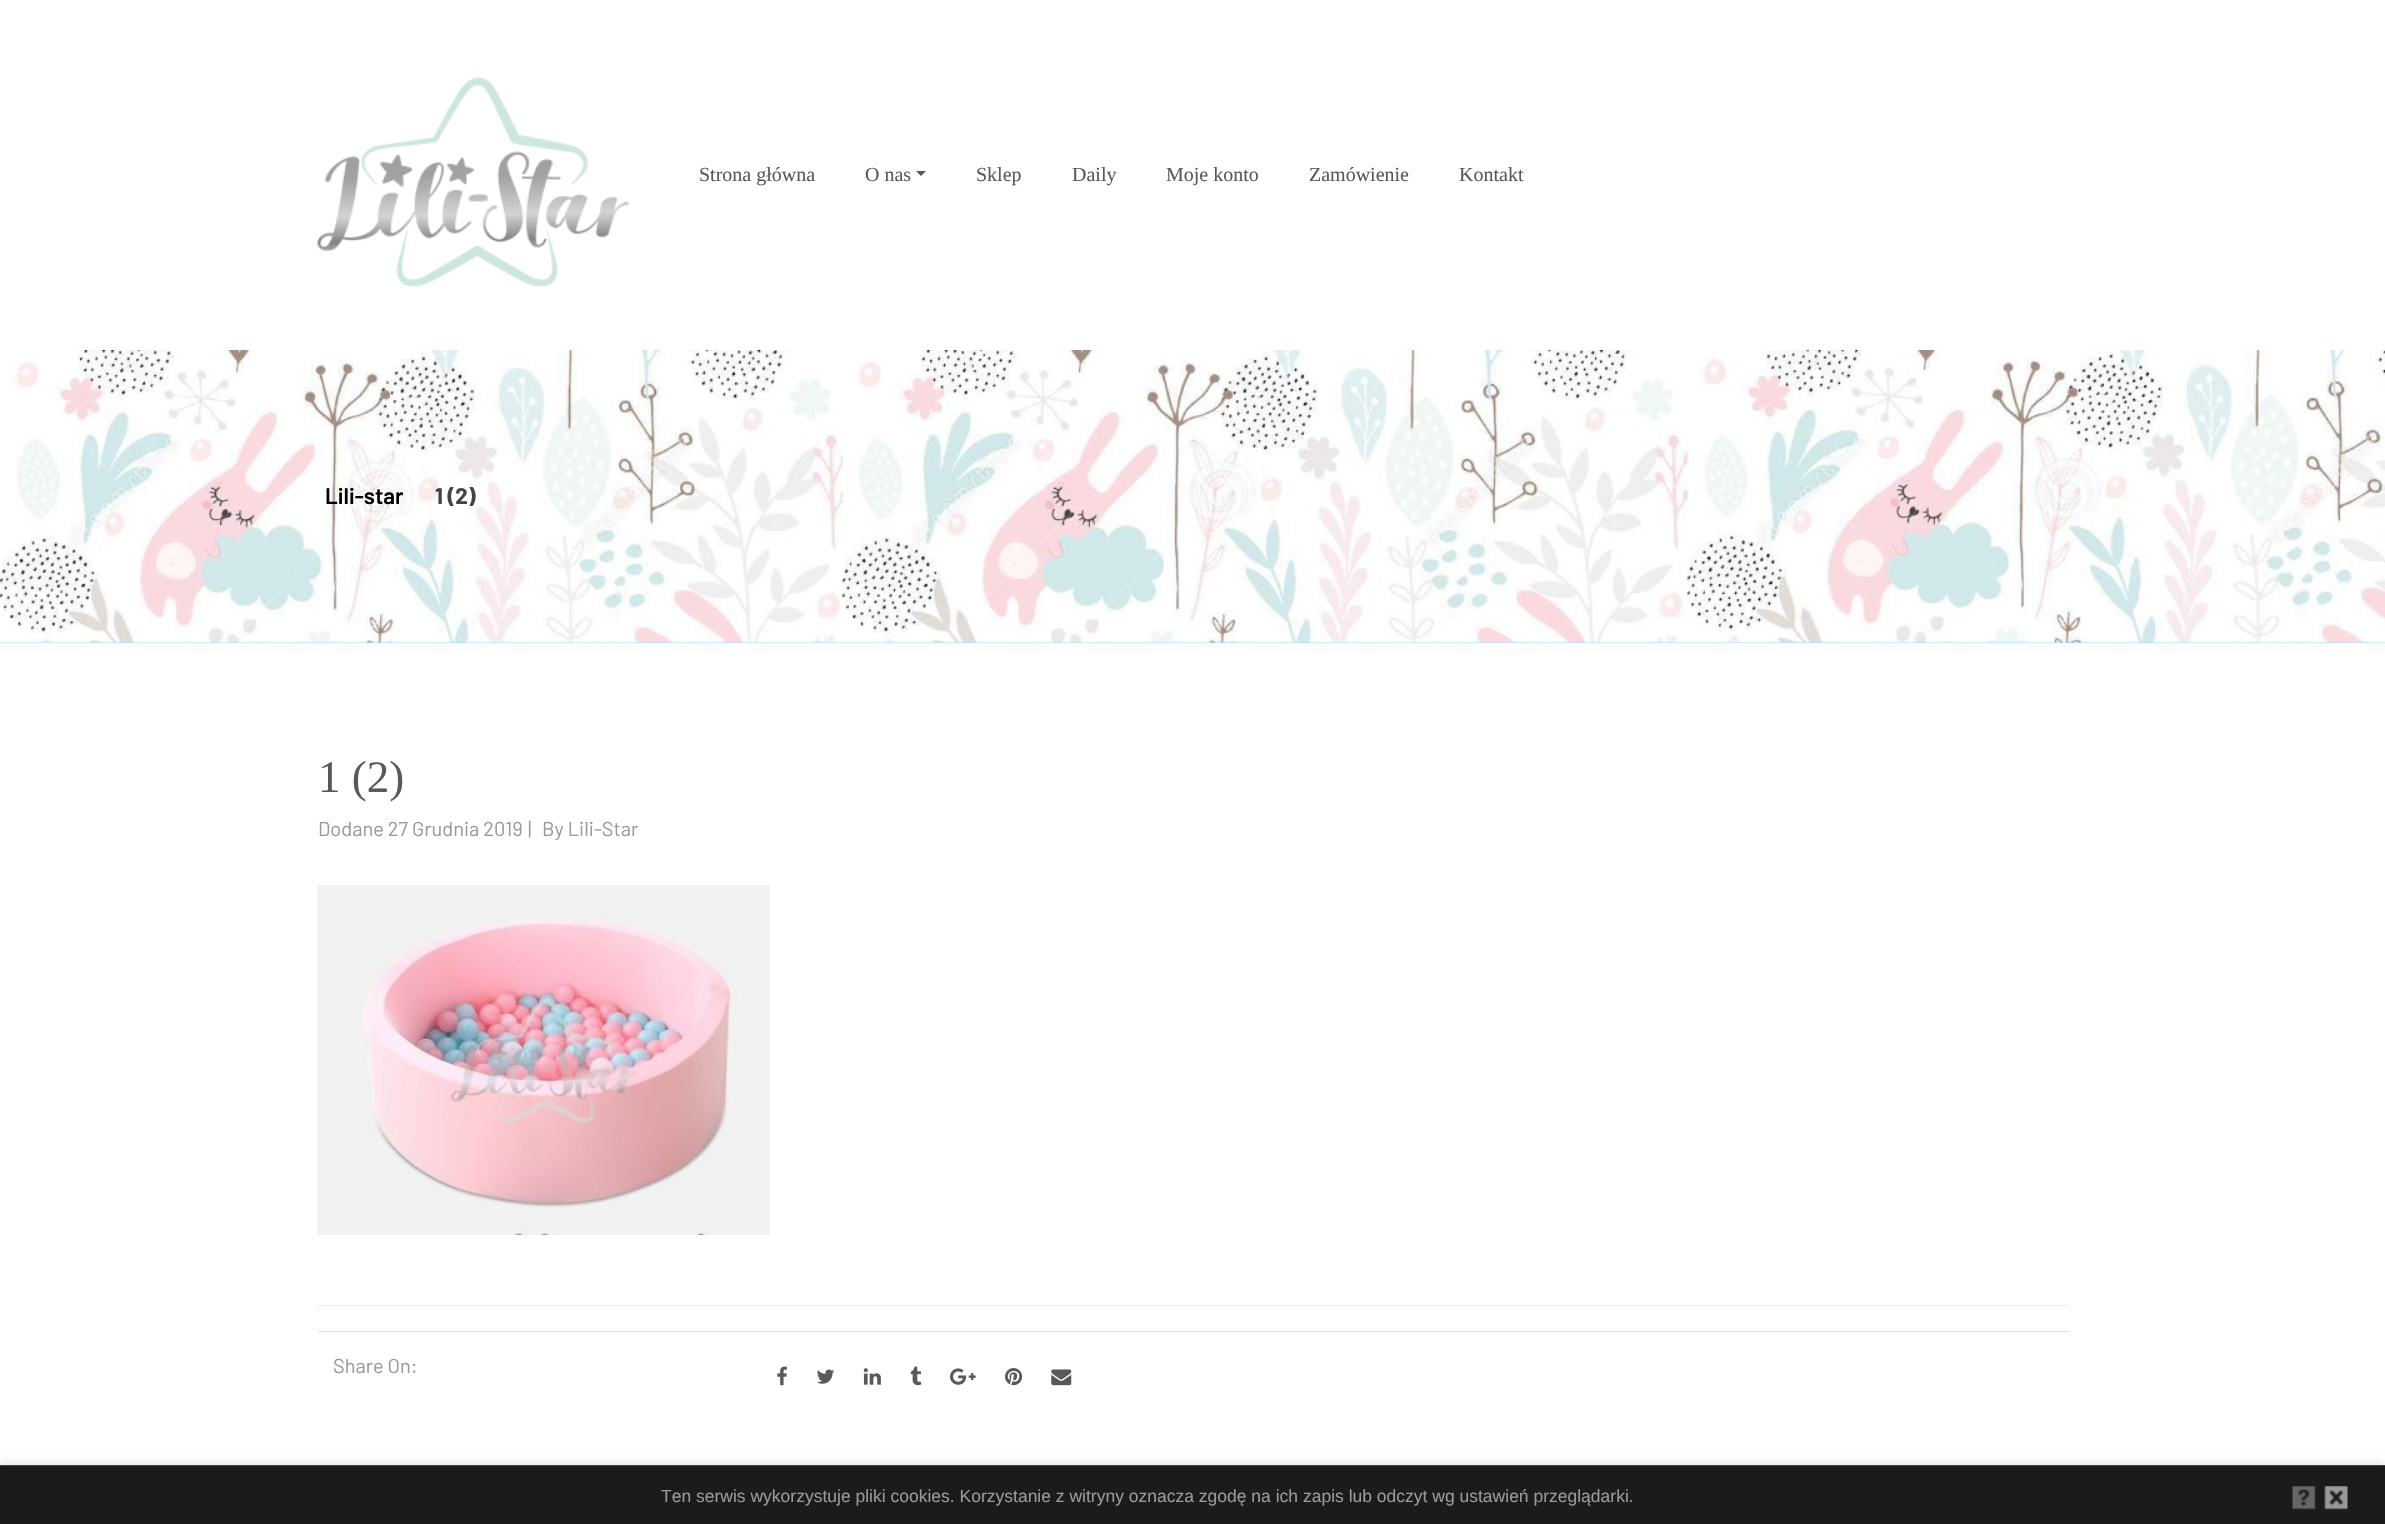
#include "include/core/SkBlurTypes.h"
#include "include/core/SkCanvas.h"
#include "include/core/SkData.h"
#include "include/core/SkFont.h"
#include "include/core/SkFontMgr.h"
#include "include/core/SkImage.h"
#include "include/core/SkMaskFilter.h"
#include "include/core/SkPaint.h"
#include "include/core/SkPathBuilder.h"
#include "include/core/SkTextBlob.h"
#include "include/effects/SkDashPathEffect.h"
#include "include/effects/SkGradientShader.h"
#include "include/utils/SkParsePath.h"

extern sk_sp<SkFontMgr> fontMgr;

static SkFont font(const char* family, int weight, float size, bool italic = false) {
    SkFontStyle style(weight, SkFontStyle::kNormal_Width,
        italic ? SkFontStyle::kItalic_Slant : SkFontStyle::kUpright_Slant);
    SkFont result(fontMgr->matchFamilyStyle(family, style), size);
    result.setSubpixel(true);
    return result;
}

static void drawLabel(SkCanvas* canvas, const char* s, float x, float y, const SkFont& font, SkColor color) {
    SkPaint ink(SkColor4f::FromColor(color));
    ink.setAntiAlias(true);
    canvas->drawString(s, x, y, font, ink);
}

static void fillRect(SkCanvas* canvas, float x, float y, float w, float h, SkColor color) {
    SkPaint ink(SkColor4f::FromColor(color));
    ink.setAntiAlias(true);
    canvas->drawRect(SkRect::MakeXYWH(x, y, w, h), ink);
}

static void drawPhoto(SkCanvas* canvas, const char* path, float x, float y, float w, float h) {
    auto image = SkImages::DeferredFromEncodedData(SkData::MakeFromFileName(path));
    canvas->drawImageRect(image, SkRect::MakeXYWH(x, y, w, h), SkSamplingOptions());
}

static SkPath parsePath(const char* data, bool evenOdd = false) {
    SkPath result = *SkParsePath::FromSVGString(data);
    if (evenOdd) result.setFillType(SkPathFillType::kEvenOdd);
    return result;
}

void draw(SkCanvas* canvas) {
    SkPaint paint;
    paint.setAntiAlias(true);
    canvas->clear(0xFFFFFFFF);
    drawPhoto(canvas, "assets/img1.png", 317, 77, 312, 210);
    SkFont font1 = font("Liberation Serif", 400, 20);
    drawLabel(canvas, "Strona główna", 699, 181, font1, 0xFF595959);
    drawLabel(canvas, "O nas", 865, 181, font1, 0xFF595959);
    paint.setColor(0xFF595959);
    canvas->drawPath(parsePath("M916 171H926L921 176Z"), paint);
    drawLabel(canvas, "Sklep", 976, 181, font1, 0xFF595959);
    drawLabel(canvas, "Daily", 1072, 181, font1, 0xFF595959);
    drawLabel(canvas, "Moje konto", 1166, 181, font1, 0xFF595959);
    drawLabel(canvas, "Zamówienie", 1309, 181, font1, 0xFF595959);
    drawLabel(canvas, "Kontakt", 1459, 181, font1, 0xFF595959);
    fillRect(canvas, 0, 642, 2385, 1, 0xFF9AE5FC);
    drawPhoto(canvas, "assets/img2.png", 0, 350, 2385, 293);
    SkFont font2 = font("Barlow", 600, 22.5f);
    drawLabel(canvas, "Lili-star", 325, 504, font2, 0xFF000000);
    SkFont font3 = font("Barlow", 700, 22.5f);
    drawLabel(canvas, "1 (2)", 435, 504, font3, 0xFF434343);
    SkFont font4 = font("Liberation Serif", 400, 45);
    drawLabel(canvas, "1 (2)", 318, 792, font4, 0xFF595959);
    SkFont font5 = font("Barlow", 400, 20);
    drawLabel(canvas, "Dodane 27 Grudnia 2019", 318, 836, font5, 0xFF999999);
    drawLabel(canvas, "|", 528, 836, font5, 0xFF999999);
    drawLabel(canvas, "By Lili-Star", 542, 836, font5, 0xFF999999);
    drawPhoto(canvas, "assets/img3.png", 317, 885, 453, 350);
    fillRect(canvas, 318, 1305, 1750, 1, 0xFFEBEBEB);
    fillRect(canvas, 318, 1331, 1751, 1, 0xFFDEE2E6);
    drawPhoto(canvas, "assets/img4.png", 777, 1366, 10, 20);
    drawPhoto(canvas, "assets/img5.png", 817, 1369, 18, 15);
    drawPhoto(canvas, "assets/img6.png", 863, 1368, 18, 17);
    drawPhoto(canvas, "assets/img7.png", 910, 1366, 12, 20);
    drawPhoto(canvas, "assets/img8.png", 950, 1368, 26, 17);
    drawPhoto(canvas, "assets/img9.png", 1005, 1368, 18, 18);
    drawPhoto(canvas, "assets/img10.png", 1051, 1369, 21, 17);
    drawLabel(canvas, "Share On:", 333, 1373, font5, 0xFF999999);
    paint.setColor(0x26000000);
    paint.setMaskFilter(SkMaskFilter::MakeBlur(kNormal_SkBlurStyle, 5));
    canvas->drawRect(SkRect::MakeXYWH(0, 1465, 2385, 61), paint);
    paint.setMaskFilter(nullptr);
    fillRect(canvas, 0, 1466, 2385, 58, 0xFF1B1B1B);
    fillRect(canvas, 0, 1465, 2385, 1, 0xFF444444);
    SkFont font6 = font("Liberation Sans", 400, 17.5f);
    drawLabel(canvas, "Ten serwis wykorzystuje pliki cookies. Korzystanie z witryny oznacza zgodę na ich zapis lub odczyt wg ustawień przeglądarki.", 661, 1502, font6, 0xFF999999);
    drawPhoto(canvas, "assets/img11.png", 2292, 1486, 24, 24);
    drawPhoto(canvas, "assets/img12.png", 2324, 1486, 24, 24);
}
